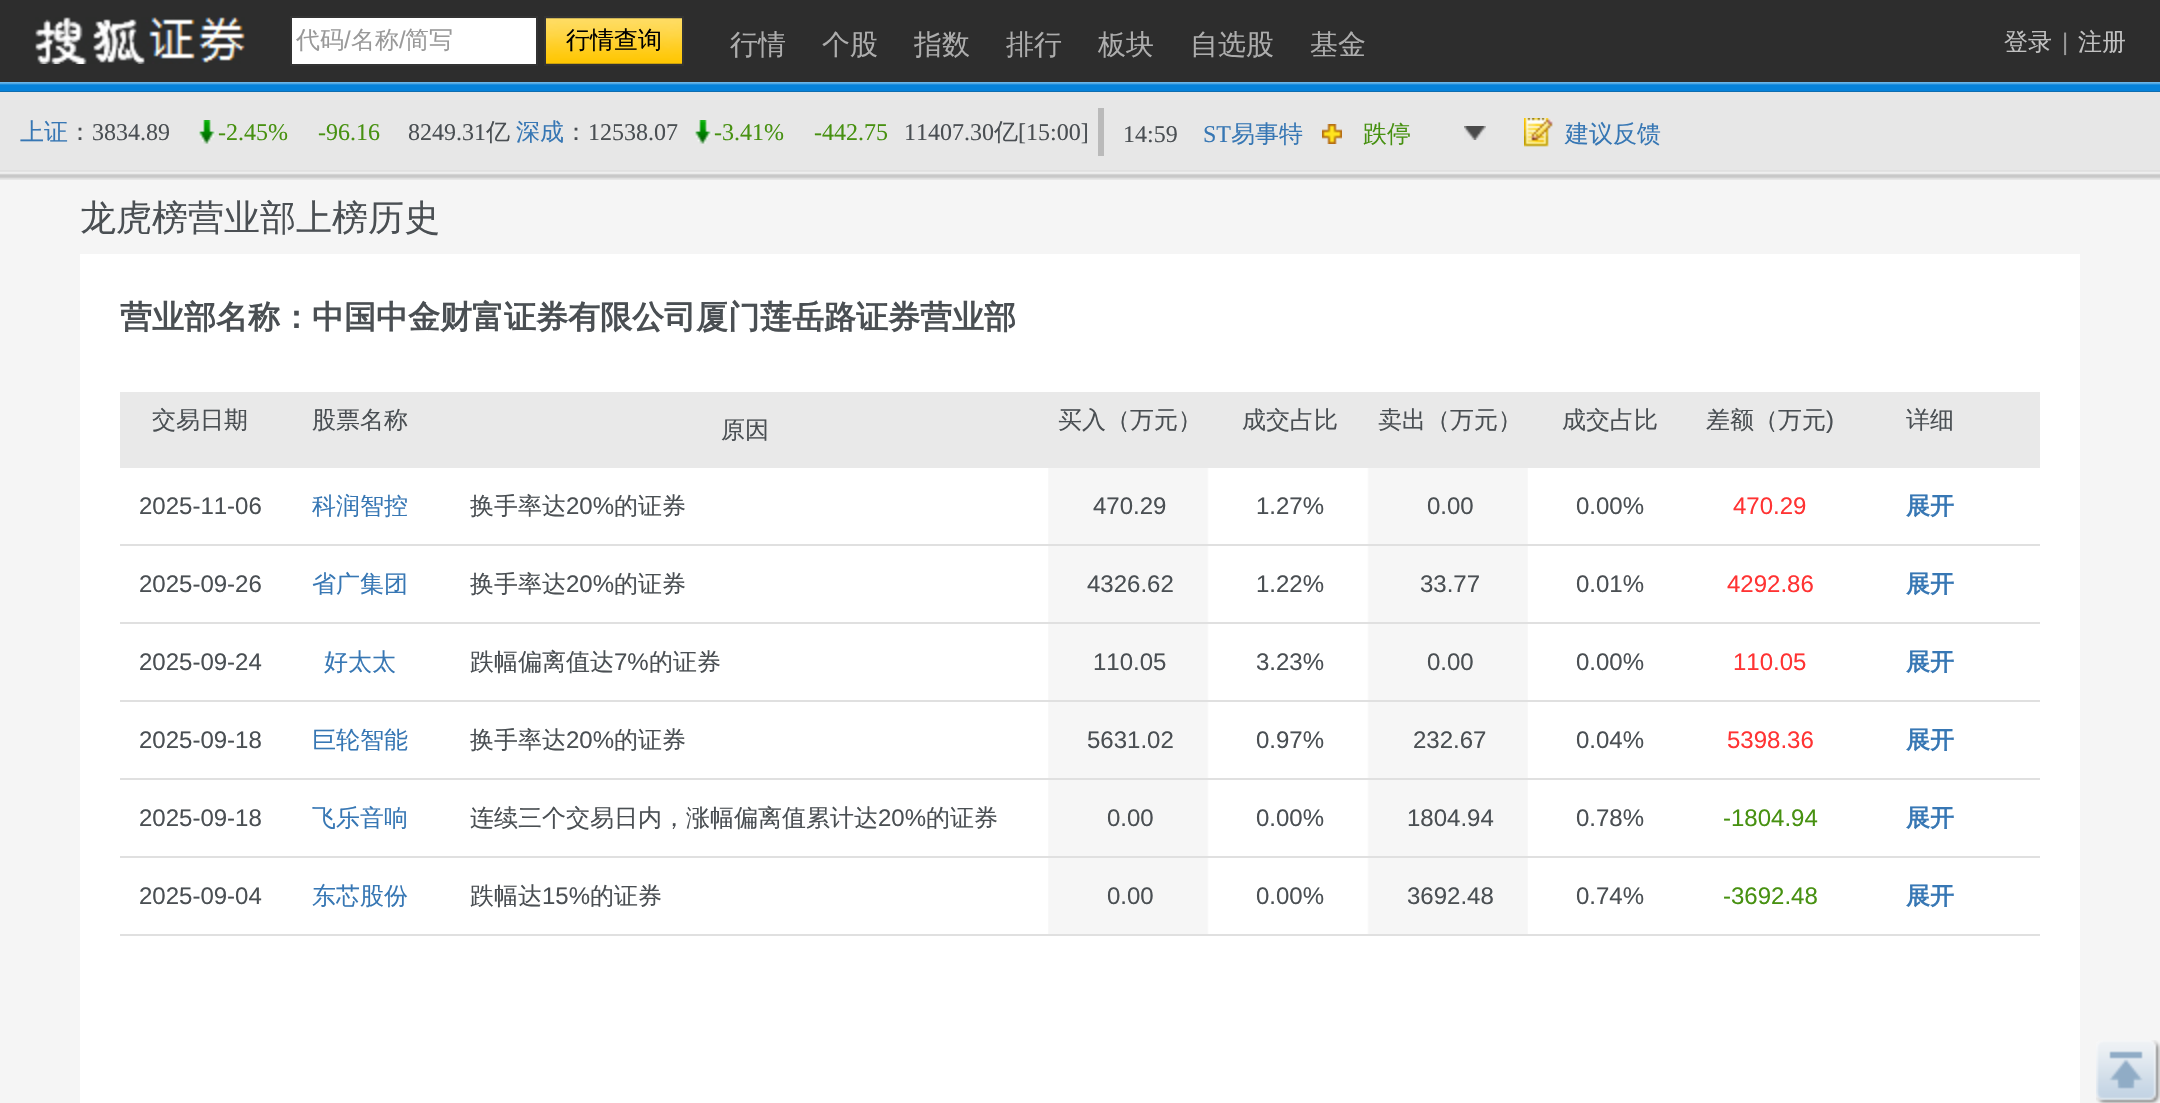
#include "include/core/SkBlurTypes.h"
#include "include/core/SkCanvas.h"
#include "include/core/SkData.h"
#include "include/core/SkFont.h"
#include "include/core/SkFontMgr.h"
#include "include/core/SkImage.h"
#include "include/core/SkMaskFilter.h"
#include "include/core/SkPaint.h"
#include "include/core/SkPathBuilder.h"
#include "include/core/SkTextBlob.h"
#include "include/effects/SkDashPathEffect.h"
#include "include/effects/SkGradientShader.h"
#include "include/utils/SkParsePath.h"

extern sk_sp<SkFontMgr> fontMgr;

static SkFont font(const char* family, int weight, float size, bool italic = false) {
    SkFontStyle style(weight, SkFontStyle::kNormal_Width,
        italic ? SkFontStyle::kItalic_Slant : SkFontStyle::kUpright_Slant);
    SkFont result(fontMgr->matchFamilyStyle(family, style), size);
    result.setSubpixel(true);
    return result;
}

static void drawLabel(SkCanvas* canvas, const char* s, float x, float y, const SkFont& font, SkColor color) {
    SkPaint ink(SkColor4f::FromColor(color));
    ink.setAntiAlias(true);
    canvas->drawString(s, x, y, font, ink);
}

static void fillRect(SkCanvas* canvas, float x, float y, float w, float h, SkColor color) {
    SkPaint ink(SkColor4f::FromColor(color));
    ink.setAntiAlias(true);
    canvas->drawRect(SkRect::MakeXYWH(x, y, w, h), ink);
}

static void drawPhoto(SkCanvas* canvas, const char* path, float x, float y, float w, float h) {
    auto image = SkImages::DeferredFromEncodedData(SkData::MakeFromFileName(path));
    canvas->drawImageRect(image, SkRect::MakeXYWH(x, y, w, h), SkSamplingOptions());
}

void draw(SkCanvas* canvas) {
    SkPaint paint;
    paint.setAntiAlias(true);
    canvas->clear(0xFFF5F5F5);
    fillRect(canvas, 0, 0, 2160, 92, 0xFF2D2D2D);
    drawPhoto(canvas, "assets/img1.png", 0, 82, 2160, 10);
    drawPhoto(canvas, "assets/img2.png", 35, 17, 210, 47);
    paint.setColor(0xFFFFFFFF);
    canvas->drawRect(SkRect::MakeXYWH(291, 17, 246, 48), paint);
    paint.setStroke(true);
    paint.setStrokeWidth(2);
    paint.setColor(0xFF333333);
    canvas->drawRect(SkRect::MakeXYWH(291, 17, 246, 48), paint);
    SkFont font1 = font("WenQuanYi Zen Hei", 500, 24);
    drawLabel(canvas, "代码", 296, 48, font1, 0xFF999999);
    SkFont font2 = font("Liberation Sans", 400, 24);
    drawLabel(canvas, "/", 344, 48, font2, 0xFF999999);
    drawLabel(canvas, "名称", 351, 48, font1, 0xFF999999);
    drawLabel(canvas, "/", 399, 48, font2, 0xFF999999);
    drawLabel(canvas, "简写", 405, 48, font1, 0xFF999999);
    drawPhoto(canvas, "assets/img3.png", 546, 18, 136, 46);
    canvas->drawRect(SkRect::MakeXYWH(545, 17, 138, 48), paint);
    drawLabel(canvas, "行情查询", 566, 48, font1, 0xFF000000);
    SkFont font3 = font("WenQuanYi Zen Hei", 500, 28);
    drawLabel(canvas, "行情", 730, 54, font3, 0xFFADADAD);
    drawLabel(canvas, "个股", 822, 54, font3, 0xFFADADAD);
    drawLabel(canvas, "指数", 914, 54, font3, 0xFFADADAD);
    drawLabel(canvas, "排行", 1006, 54, font3, 0xFFADADAD);
    drawLabel(canvas, "板块", 1098, 54, font3, 0xFFADADAD);
    drawLabel(canvas, "自选股", 1190, 54, font3, 0xFFADADAD);
    drawLabel(canvas, "基金", 1310, 54, font3, 0xFFADADAD);
    drawLabel(canvas, "登录", 2004, 50, font1, 0xFFC1C1C1);
    drawLabel(canvas, "|", 2062, 50, font2, 0xFF999999);
    drawLabel(canvas, "注册", 2078, 50, font1, 0xFFC1C1C1);
    fillRect(canvas, 0, 92, 2160, 88, 0xFFE7E7E7);
    drawPhoto(canvas, "assets/img4.png", 0, 170, 2160, 9);
    drawLabel(canvas, "上证", 20, 140, font1, 0xFF3777B4);
    drawLabel(canvas, "：", 68, 140, font1, 0xFF4A4F53);
    SkFont font4 = font("Liberation Serif", 400, 24);
    drawLabel(canvas, "3834.89", 92, 140, font4, 0xFF4A4F53);
    drawPhoto(canvas, "assets/img5.png", 198, 120, 18, 24);
    drawLabel(canvas, "-2.45%", 218, 140, font4, 0xFF479111);
    drawLabel(canvas, "-96.16", 318, 140, font4, 0xFF479111);
    drawLabel(canvas, "8249.31", 408, 140, font4, 0xFF4A4F53);
    drawLabel(canvas, "亿", 486, 140, font1, 0xFF4A4F53);
    drawLabel(canvas, "深成", 516, 140, font1, 0xFF3777B4);
    drawLabel(canvas, "：", 564, 140, font1, 0xFF4A4F53);
    drawLabel(canvas, "12538.07", 588, 140, font4, 0xFF4A4F53);
    drawPhoto(canvas, "assets/img5.png", 694, 120, 18, 24);
    drawLabel(canvas, "-3.41%", 714, 140, font4, 0xFF479111);
    drawLabel(canvas, "-442.75", 814, 140, font4, 0xFF479111);
    drawLabel(canvas, "11407.30", 904, 140, font4, 0xFF4A4F53);
    drawLabel(canvas, "亿", 994, 140, font1, 0xFF4A4F53);
    drawLabel(canvas, "[15:00]", 1018, 140, font4, 0xFF4A4F53);
    fillRect(canvas, 1098, 108, 6, 48, 0xFFBABABA);
    drawLabel(canvas, "14:59", 1123, 142, font4, 0xFF4A4F53);
    drawLabel(canvas, "ST", 1203, 142, font4, 0xFF3777B4);
    drawLabel(canvas, "易事特", 1231, 142, font1, 0xFF3777B4);
    drawPhoto(canvas, "assets/img6.png", 1322, 124, 20, 20);
    drawLabel(canvas, "跌停", 1363, 142, font1, 0xFF479111);
    drawPhoto(canvas, "assets/img7.png", 1464, 126, 22, 14);
    drawPhoto(canvas, "assets/img8.png", 1524, 118, 29, 29);
    drawLabel(canvas, "建议反馈", 1565, 142, font1, 0xFF3777B4);
    SkFont font5 = font("WenQuanYi Zen Hei", 500, 36);
    drawLabel(canvas, "龙虎榜营业部上榜历史", 80, 230, font5, 0xFF4A4F53);
    fillRect(canvas, 80, 254, 2000, 849, 0xFFFFFFFF);
    SkFont font6 = font("WenQuanYi Zen Hei", 700, 32);
    drawLabel(canvas, "营业部名称：中国中金财富证券有限公司厦门莲岳路证券营业部", 120, 328, font6, 0xFF4A4F53);
    fillRect(canvas, 120, 392, 1920, 76, 0xFFE9E9E9);
    drawLabel(canvas, "交易日期", 152, 428, font1, 0xFF4A4F53);
    drawLabel(canvas, "股票名称", 312, 428, font1, 0xFF4A4F53);
    drawLabel(canvas, "原因", 721, 438, font1, 0xFF4A4F53);
    drawLabel(canvas, "买入（万元）", 1058, 428, font1, 0xFF4A4F53);
    drawLabel(canvas, "成交占比", 1242, 428, font1, 0xFF4A4F53);
    drawLabel(canvas, "卖出（万元）", 1378, 428, font1, 0xFF4A4F53);
    drawLabel(canvas, "成交占比", 1562, 428, font1, 0xFF4A4F53);
    drawLabel(canvas, "差额（万元", 1706, 428, font1, 0xFF4A4F53);
    drawLabel(canvas, ")", 1826, 428, font2, 0xFF4A4F53);
    drawLabel(canvas, "详细", 1906, 428, font1, 0xFF4A4F53);
    fillRect(canvas, 120, 544, 1920, 2, 0xFFE0E0E0);
    drawPhoto(canvas, "assets/img9.png", 1048, 468, 480, 76);
    drawLabel(canvas, "2025-11-06", 139, 514, font2, 0xFF4A4F53);
    drawLabel(canvas, "科润智控", 312, 514, font1, 0xFF3777B4);
    drawLabel(canvas, "换手率达", 470, 514, font1, 0xFF4A4F53);
    drawLabel(canvas, "20%", 566, 514, font2, 0xFF4A4F53);
    drawLabel(canvas, "的证券", 614, 514, font1, 0xFF4A4F53);
    drawLabel(canvas, "470.29", 1093, 514, font2, 0xFF4A4F53);
    drawLabel(canvas, "1.27%", 1256, 514, font2, 0xFF4A4F53);
    drawLabel(canvas, "0.00", 1427, 514, font2, 0xFF4A4F53);
    drawLabel(canvas, "0.00%", 1576, 514, font2, 0xFF4A4F53);
    drawLabel(canvas, "470.29", 1733, 514, font2, 0xFFFF3333);
    SkFont font7 = font("WenQuanYi Zen Hei", 700, 24);
    drawLabel(canvas, "展开", 1906, 514, font7, 0xFF3777B4);
    fillRect(canvas, 120, 622, 1920, 2, 0xFFE0E0E0);
    drawPhoto(canvas, "assets/img9.png", 1048, 546, 480, 76);
    drawLabel(canvas, "2025-09-26", 139, 592, font2, 0xFF4A4F53);
    drawLabel(canvas, "省广集团", 312, 592, font1, 0xFF3777B4);
    drawLabel(canvas, "换手率达", 470, 592, font1, 0xFF4A4F53);
    drawLabel(canvas, "20%", 566, 592, font2, 0xFF4A4F53);
    drawLabel(canvas, "的证券", 614, 592, font1, 0xFF4A4F53);
    drawLabel(canvas, "4326.62", 1087, 592, font2, 0xFF4A4F53);
    drawLabel(canvas, "1.22%", 1256, 592, font2, 0xFF4A4F53);
    drawLabel(canvas, "33.77", 1420, 592, font2, 0xFF4A4F53);
    drawLabel(canvas, "0.01%", 1576, 592, font2, 0xFF4A4F53);
    drawLabel(canvas, "4292.86", 1727, 592, font2, 0xFFFF3333);
    drawLabel(canvas, "展开", 1906, 592, font7, 0xFF3777B4);
    fillRect(canvas, 120, 700, 1920, 2, 0xFFE0E0E0);
    drawPhoto(canvas, "assets/img9.png", 1048, 624, 480, 76);
    drawLabel(canvas, "2025-09-24", 139, 670, font2, 0xFF4A4F53);
    drawLabel(canvas, "好太太", 324, 670, font1, 0xFF3777B4);
    drawLabel(canvas, "跌幅偏离值达", 470, 670, font1, 0xFF4A4F53);
    drawLabel(canvas, "7%", 614, 670, font2, 0xFF4A4F53);
    drawLabel(canvas, "的证券", 649, 670, font1, 0xFF4A4F53);
    drawLabel(canvas, "110.05", 1093, 670, font2, 0xFF4A4F53);
    drawLabel(canvas, "3.23%", 1256, 670, font2, 0xFF4A4F53);
    drawLabel(canvas, "0.00", 1427, 670, font2, 0xFF4A4F53);
    drawLabel(canvas, "0.00%", 1576, 670, font2, 0xFF4A4F53);
    drawLabel(canvas, "110.05", 1733, 670, font2, 0xFFFF3333);
    drawLabel(canvas, "展开", 1906, 670, font7, 0xFF3777B4);
    fillRect(canvas, 120, 778, 1920, 2, 0xFFE0E0E0);
    drawPhoto(canvas, "assets/img9.png", 1048, 702, 480, 76);
    drawLabel(canvas, "2025-09-18", 139, 748, font2, 0xFF4A4F53);
    drawLabel(canvas, "巨轮智能", 312, 748, font1, 0xFF3777B4);
    drawLabel(canvas, "换手率达", 470, 748, font1, 0xFF4A4F53);
    drawLabel(canvas, "20%", 566, 748, font2, 0xFF4A4F53);
    drawLabel(canvas, "的证券", 614, 748, font1, 0xFF4A4F53);
    drawLabel(canvas, "5631.02", 1087, 748, font2, 0xFF4A4F53);
    drawLabel(canvas, "0.97%", 1256, 748, font2, 0xFF4A4F53);
    drawLabel(canvas, "232.67", 1413, 748, font2, 0xFF4A4F53);
    drawLabel(canvas, "0.04%", 1576, 748, font2, 0xFF4A4F53);
    drawLabel(canvas, "5398.36", 1727, 748, font2, 0xFFFF3333);
    drawLabel(canvas, "展开", 1906, 748, font7, 0xFF3777B4);
    fillRect(canvas, 120, 856, 1920, 2, 0xFFE0E0E0);
    drawPhoto(canvas, "assets/img9.png", 1048, 780, 480, 76);
    drawLabel(canvas, "2025-09-18", 139, 826, font2, 0xFF4A4F53);
    drawLabel(canvas, "飞乐音响", 312, 826, font1, 0xFF3777B4);
    drawLabel(canvas, "连续三个交易日内，涨幅偏离值累计达", 470, 826, font1, 0xFF4A4F53);
    drawLabel(canvas, "20%", 878, 826, font2, 0xFF4A4F53);
    drawLabel(canvas, "的证券", 926, 826, font1, 0xFF4A4F53);
    drawLabel(canvas, "0.00", 1107, 826, font2, 0xFF4A4F53);
    drawLabel(canvas, "0.00%", 1256, 826, font2, 0xFF4A4F53);
    drawLabel(canvas, "1804.94", 1407, 826, font2, 0xFF4A4F53);
    drawLabel(canvas, "0.78%", 1576, 826, font2, 0xFF4A4F53);
    drawLabel(canvas, "-1804.94", 1723, 826, font2, 0xFF479111);
    drawLabel(canvas, "展开", 1906, 826, font7, 0xFF3777B4);
    fillRect(canvas, 120, 934, 1920, 2, 0xFFE0E0E0);
    drawPhoto(canvas, "assets/img9.png", 1048, 858, 480, 76);
    drawLabel(canvas, "2025-09-04", 139, 904, font2, 0xFF4A4F53);
    drawLabel(canvas, "东芯股份", 312, 904, font1, 0xFF3777B4);
    drawLabel(canvas, "跌幅达", 470, 904, font1, 0xFF4A4F53);
    drawLabel(canvas, "15%", 542, 904, font2, 0xFF4A4F53);
    drawLabel(canvas, "的证券", 590, 904, font1, 0xFF4A4F53);
    drawLabel(canvas, "0.00", 1107, 904, font2, 0xFF4A4F53);
    drawLabel(canvas, "0.00%", 1256, 904, font2, 0xFF4A4F53);
    drawLabel(canvas, "3692.48", 1407, 904, font2, 0xFF4A4F53);
    drawLabel(canvas, "0.74%", 1576, 904, font2, 0xFF4A4F53);
    drawLabel(canvas, "-3692.48", 1723, 904, font2, 0xFF479111);
    drawLabel(canvas, "展开", 1906, 904, font7, 0xFF3777B4);
    drawPhoto(canvas, "assets/img10.png", 2096, 1040, 64, 63);
}
